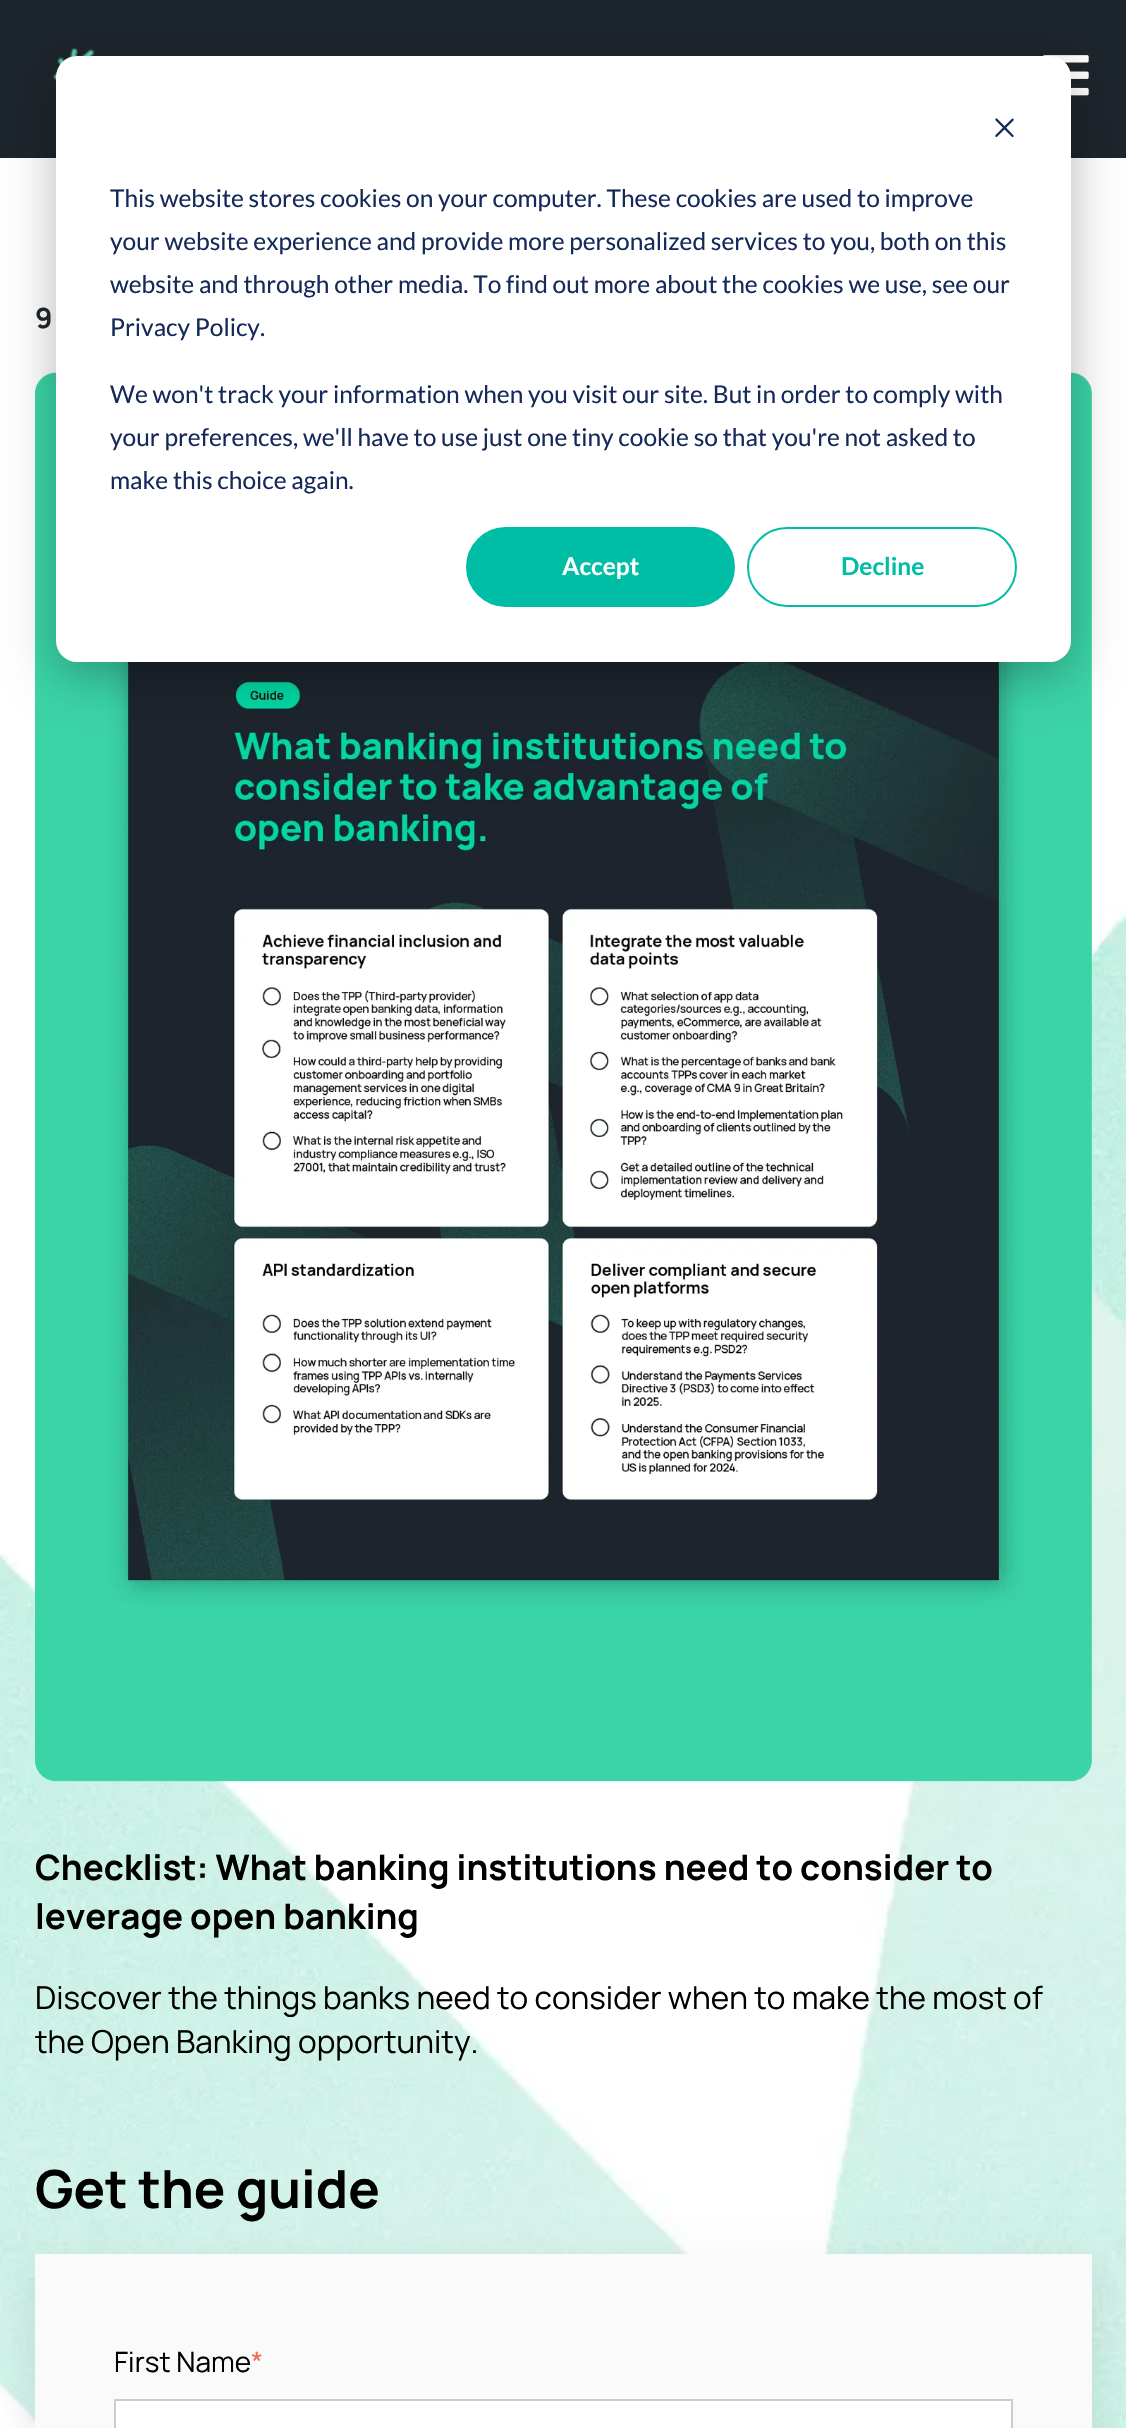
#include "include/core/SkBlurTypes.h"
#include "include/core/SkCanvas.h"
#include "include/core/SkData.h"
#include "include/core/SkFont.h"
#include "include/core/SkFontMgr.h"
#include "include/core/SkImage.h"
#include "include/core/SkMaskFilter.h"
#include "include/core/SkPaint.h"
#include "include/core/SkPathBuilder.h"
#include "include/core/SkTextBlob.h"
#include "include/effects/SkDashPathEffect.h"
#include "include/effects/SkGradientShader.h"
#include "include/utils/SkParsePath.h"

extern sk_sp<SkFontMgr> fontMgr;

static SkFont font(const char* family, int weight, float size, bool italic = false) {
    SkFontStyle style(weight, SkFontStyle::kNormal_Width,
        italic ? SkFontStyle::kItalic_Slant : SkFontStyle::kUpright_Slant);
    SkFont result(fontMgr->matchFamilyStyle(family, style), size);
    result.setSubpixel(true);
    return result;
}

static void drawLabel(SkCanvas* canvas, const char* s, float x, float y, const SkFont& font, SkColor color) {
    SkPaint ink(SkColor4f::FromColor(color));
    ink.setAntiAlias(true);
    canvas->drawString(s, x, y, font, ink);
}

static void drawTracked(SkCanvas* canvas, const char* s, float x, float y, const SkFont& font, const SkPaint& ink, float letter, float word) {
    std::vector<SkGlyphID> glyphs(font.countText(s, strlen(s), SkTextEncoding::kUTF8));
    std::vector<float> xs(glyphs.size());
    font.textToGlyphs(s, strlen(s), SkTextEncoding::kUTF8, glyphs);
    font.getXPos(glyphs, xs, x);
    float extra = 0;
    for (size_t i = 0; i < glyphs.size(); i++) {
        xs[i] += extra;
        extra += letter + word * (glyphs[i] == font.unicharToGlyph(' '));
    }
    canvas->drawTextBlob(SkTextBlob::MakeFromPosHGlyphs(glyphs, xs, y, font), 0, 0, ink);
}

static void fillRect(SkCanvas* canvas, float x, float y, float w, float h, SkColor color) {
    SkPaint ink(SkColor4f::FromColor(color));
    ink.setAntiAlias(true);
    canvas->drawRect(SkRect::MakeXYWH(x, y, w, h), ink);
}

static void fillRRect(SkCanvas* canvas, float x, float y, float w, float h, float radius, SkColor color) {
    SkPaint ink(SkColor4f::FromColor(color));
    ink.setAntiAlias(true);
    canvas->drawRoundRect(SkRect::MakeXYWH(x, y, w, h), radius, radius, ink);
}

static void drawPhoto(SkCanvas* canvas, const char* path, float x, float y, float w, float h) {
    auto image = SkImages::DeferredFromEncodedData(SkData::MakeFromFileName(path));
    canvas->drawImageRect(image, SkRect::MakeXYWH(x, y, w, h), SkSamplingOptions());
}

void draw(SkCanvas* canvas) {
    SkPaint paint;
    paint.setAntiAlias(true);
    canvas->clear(0xFFFFFFFF);
    fillRect(canvas, 0, 0, 1126, 158, 0xFF1D252C);
    drawPhoto(canvas, "assets/img2.png", 52, 47, 43, 34);
    drawPhoto(canvas, "assets/img3.png", 1043, 55, 46, 41);
    drawPhoto(canvas, "assets/img4.png", 0, 158, 1126, 2270);
    drawPhoto(canvas, "assets/img5.png", 35, 372, 1057, 1410);
    paint.setColor(0x47000000);
    paint.setMaskFilter(SkMaskFilter::MakeBlur(kNormal_SkBlurStyle, 24.5f));
    canvas->drawRoundRect(SkRect::MakeXYWH(56, 70, 1015, 606), 21, 21, paint);
    paint.setMaskFilter(nullptr);
    fillRRect(canvas, 56, 56, 1015, 606, 21, 0xFFFFFFFF);
    drawPhoto(canvas, "assets/img1.png", 995, 118, 19, 20);
    SkFont font1 = font("Lato", 400, 24.5f);
    drawLabel(canvas, "This website stores cookies on your computer. These cookies are used to improve", 110, 207, font1, 0xFF15295A);
    drawLabel(canvas, "your website experience and provide more personalized services to you, both on this", 110, 250, font1, 0xFF15295A);
    drawLabel(canvas, "website and through other media. To find out more about the cookies we use, see our", 110, 293, font1, 0xFF15295A);
    drawLabel(canvas, "Privacy Policy.", 110, 336, font1, 0xFF15295A);
    drawLabel(canvas, "We won't track your information when you visit our site. But in order to comply with", 110, 403, font1, 0xFF15295A);
    drawLabel(canvas, "your preferences, we'll have to use just one tiny cookie so that you're not asked to", 110, 446, font1, 0xFF15295A);
    drawLabel(canvas, "make this choice again.", 110, 489, font1, 0xFF15295A);
    paint.setColor(0xFF00BDA5);
    canvas->drawRoundRect(SkRect::MakeXYWH(467, 528, 267, 78), 39, 39, paint);
    paint.setStroke(true);
    paint.setStrokeWidth(2);
    canvas->drawRoundRect(SkRect::MakeXYWH(467, 528, 267, 78), 39, 39, paint);
    SkFont font2 = font("Lato", 700, 24.5f);
    drawLabel(canvas, "Accept", 562, 575, font2, 0xFFFFFFFF);
    canvas->drawRoundRect(SkRect::MakeXYWH(748, 528, 268, 78), 39, 39, paint);
    drawLabel(canvas, "Decline", 841, 575, font2, 0xFF00BDA5);
    SkFont font3 = font("Manrope", 700, 28);
    paint.setStroke(false);
    paint.setColor(0xFF1D252C);
    drawTracked(canvas, "9", 35, 328, font3, paint, 5, 0);
    SkFont font4 = font("Manrope", 700, 35);
    drawLabel(canvas, "Checklist: What banking institutions need to consider to", 35, 1880, font4, 0xFF000000);
    drawLabel(canvas, "leverage open banking", 35, 1929, font4, 0xFF000000);
    SkFont font5 = font("Manrope", 400, 31.5f);
    drawLabel(canvas, "Discover the things banks need to consider when to make the most of", 35, 2009, font5, 0xFF000000);
    drawLabel(canvas, "the Open Banking opportunity.", 35, 2053, font5, 0xFF000000);
    paint.setColor(0x14000000);
    paint.setMaskFilter(SkMaskFilter::MakeBlur(kNormal_SkBlurStyle, 16.5f));
    canvas->drawRect(SkRect::MakeXYWH(32, 2265, 1064, 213), paint);
    paint.setMaskFilter(nullptr);
    SkFont font6 = font("Manrope", 700, 52.5f);
    drawLabel(canvas, "Get the guide", 35, 2208, font6, 0xFF000000);
    fillRect(canvas, 35, 2254, 1057, 174, 0xFFFAFAFA);
    SkFont font7 = font("Manrope", 400, 28);
    drawLabel(canvas, "First Name", 114, 2372, font7, 0xFF000000);
    drawLabel(canvas, "*", 251, 2372, font7, 0xFFEF6B51);
    paint.setColor(0xFFFFFFFF);
    canvas->drawRect(SkRect::MakeXYWH(115, 2400, 897, 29), paint);
    paint.setStroke(true);
    paint.setColor(0xFFCCCCCC);
    canvas->drawRect(SkRect::MakeXYWH(115, 2400, 897, 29), paint);
}
